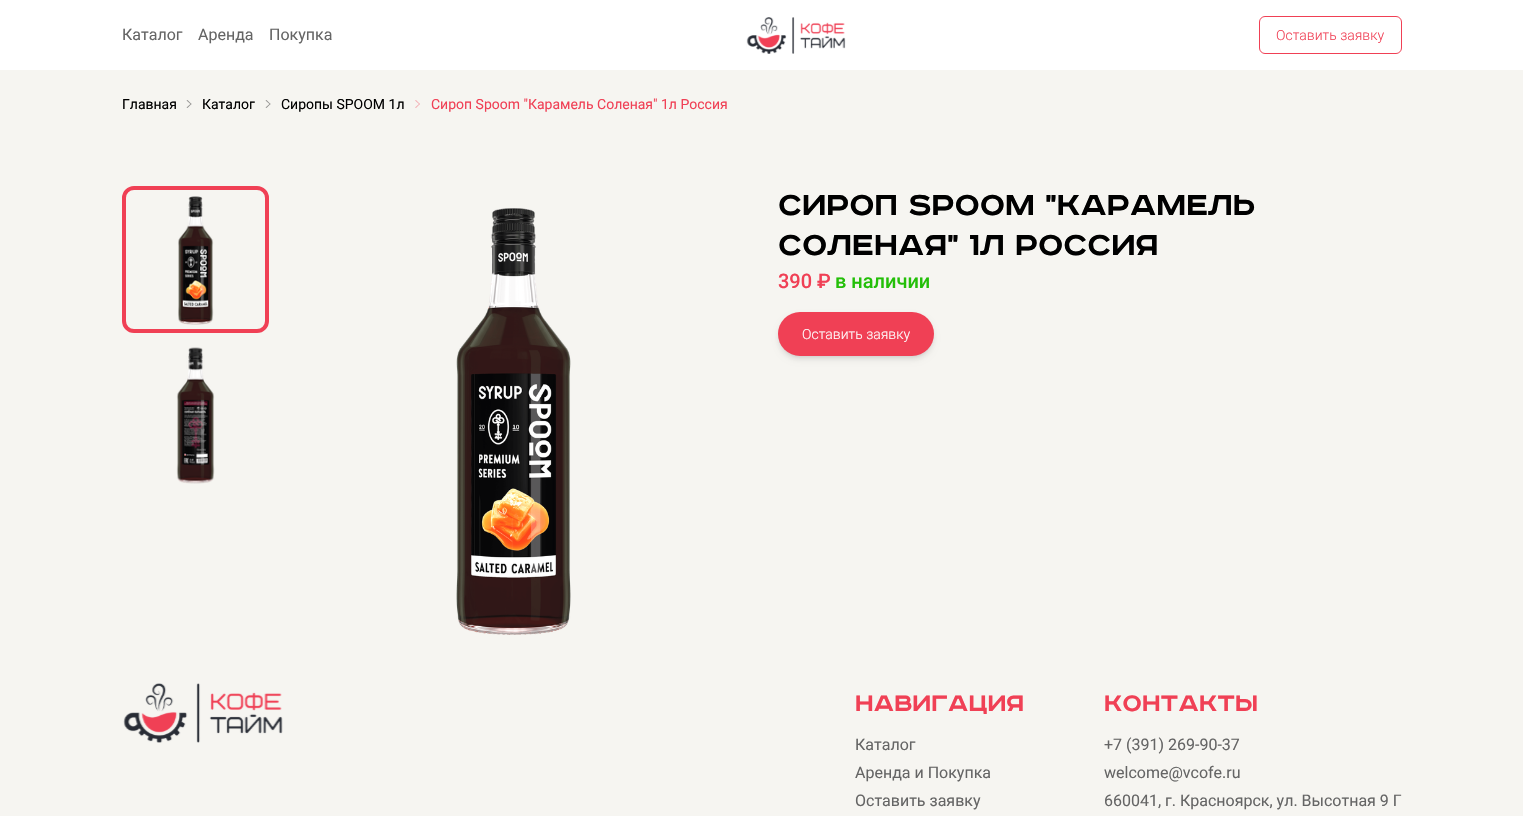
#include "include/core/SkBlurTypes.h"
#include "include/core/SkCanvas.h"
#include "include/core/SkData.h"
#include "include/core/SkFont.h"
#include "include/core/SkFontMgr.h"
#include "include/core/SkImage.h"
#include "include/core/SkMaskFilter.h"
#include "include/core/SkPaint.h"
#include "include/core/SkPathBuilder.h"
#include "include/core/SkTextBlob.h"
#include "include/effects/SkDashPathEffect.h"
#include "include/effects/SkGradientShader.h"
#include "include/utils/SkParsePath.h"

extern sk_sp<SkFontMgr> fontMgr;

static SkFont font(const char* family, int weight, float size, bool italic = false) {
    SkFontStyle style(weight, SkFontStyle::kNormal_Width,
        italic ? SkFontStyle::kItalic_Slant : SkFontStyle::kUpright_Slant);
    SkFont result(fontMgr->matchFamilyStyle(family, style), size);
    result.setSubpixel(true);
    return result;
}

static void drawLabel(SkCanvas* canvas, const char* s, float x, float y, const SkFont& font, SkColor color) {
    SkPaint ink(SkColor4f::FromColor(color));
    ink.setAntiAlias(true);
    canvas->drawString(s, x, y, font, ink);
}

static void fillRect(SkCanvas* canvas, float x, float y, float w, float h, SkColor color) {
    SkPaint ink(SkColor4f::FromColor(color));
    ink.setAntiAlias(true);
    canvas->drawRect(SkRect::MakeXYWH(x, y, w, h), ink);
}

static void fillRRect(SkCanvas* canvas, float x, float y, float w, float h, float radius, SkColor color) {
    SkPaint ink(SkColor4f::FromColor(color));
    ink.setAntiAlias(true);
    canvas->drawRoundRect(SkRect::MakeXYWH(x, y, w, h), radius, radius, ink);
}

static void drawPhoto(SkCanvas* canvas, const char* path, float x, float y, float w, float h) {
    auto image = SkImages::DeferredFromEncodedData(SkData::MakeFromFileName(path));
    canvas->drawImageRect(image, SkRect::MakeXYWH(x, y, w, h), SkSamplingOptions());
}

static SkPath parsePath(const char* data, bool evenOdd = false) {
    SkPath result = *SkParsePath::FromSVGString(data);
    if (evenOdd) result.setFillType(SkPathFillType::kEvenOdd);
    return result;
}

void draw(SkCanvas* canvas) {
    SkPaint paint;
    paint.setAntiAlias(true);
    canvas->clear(0xFFF6F5F1);
    fillRect(canvas, 0, 0, 1523, 70, 0xFFFFFFFF);
    SkFont font1 = font("Roboto", 400, 16);
    drawLabel(canvas, "Каталог", 122, 40, font1, 0xFF656565);
    drawLabel(canvas, "Аренда", 198, 40, font1, 0xFF656565);
    drawLabel(canvas, "Покупка", 269, 40, font1, 0xFF656565);
    drawPhoto(canvas, "assets/img1.png", 746, 17, 100, 37);
    paint.setStroke(true);
    paint.setStrokeWidth(1);
    paint.setColor(0xFFF04055);
    canvas->drawRoundRect(SkRect::MakeXYWH(1259.5f, 16.5f, 142, 37), 5.5f, 5.5f, paint);
    SkFont font2 = font("Roboto", 300, 14);
    drawLabel(canvas, "Оставить заявку", 1276, 40, font2, 0xFFF04055);
    SkFont font3 = font("Roboto", 400, 14);
    drawLabel(canvas, "Главная", 122, 109, font3, 0xFF000000);
    paint.setStroke(false);
    paint.setColor(0xFF949391);
    canvas->drawPath(parsePath("M187.5 100L191.5 104L191 104.5L186.5 100.5Z"), paint);
    canvas->drawPath(parsePath("M191 103.5L191.5 104L187.5 108L186.5 107.5Z"), paint);
    drawLabel(canvas, "Каталог", 202, 109, font3, 0xFF000000);
    canvas->drawPath(parsePath("M266.5 100L270.5 104L270 104.5L265.5 100.5Z"), paint);
    canvas->drawPath(parsePath("M270 103.5L270.5 104L266.5 108L265.5 107.5Z"), paint);
    drawLabel(canvas, "Сиропы SPOOM 1л", 281, 109, font3, 0xFF000000);
    paint.setColor(0xFFF4ADB3);
    canvas->drawPath(parsePath("M416 100L420 104L419.5 104.5L415 100.5Z"), paint);
    canvas->drawPath(parsePath("M419.5 103.5L420 104L416 108L415 107.5Z"), paint);
    drawLabel(canvas, "Сироп Spoom \"Карамель Соленая\" 1л Россия", 431, 109, font3, 0xFFF04055);
    paint.setStroke(true);
    paint.setStrokeWidth(4);
    paint.setColor(0xFFF04055);
    canvas->drawRoundRect(SkRect::MakeXYWH(124, 188, 143, 143), 10, 10, paint);
    drawPhoto(canvas, "assets/img2.png", 178, 196, 36, 129);
    drawPhoto(canvas, "assets/img3.png", 176, 347, 39, 137);
    drawPhoto(canvas, "assets/img4.png", 456, 208, 115, 427);
    SkFont font4 = font("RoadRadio", 700, 36);
    drawLabel(canvas, "Сироп Spoom \"Карамель", 778, 215, font4, 0xFF000000);
    drawLabel(canvas, "Соленая\" 1л Россия", 778, 255, font4, 0xFF000000);
    SkFont font5 = font("Roboto", 500, 20);
    drawLabel(canvas, "390 ₽", 778, 288, font5, 0xFFF04055);
    drawLabel(canvas, "в наличии", 835, 288, font5, 0xFF23BF08);
    paint.setStroke(false);
    paint.setColor(0x1A000000);
    paint.setMaskFilter(SkMaskFilter::MakeBlur(kNormal_SkBlurStyle, 2));
    canvas->drawRoundRect(SkRect::MakeXYWH(780, 316, 152, 40), 20, 20, paint);
    paint.setMaskFilter(nullptr);
    paint.setMaskFilter(SkMaskFilter::MakeBlur(kNormal_SkBlurStyle, 3));
    canvas->drawRoundRect(SkRect::MakeXYWH(779, 317, 154, 42), 21, 21, paint);
    paint.setMaskFilter(nullptr);
    fillRRect(canvas, 778, 312, 156, 44, 22, 0xFFF04055);
    drawLabel(canvas, "Оставить заявку", 802, 339, font2, 0xFFFFFFFF);
    drawPhoto(canvas, "assets/img5.png", 123, 683, 160, 60);
    SkFont font6 = font("RoadRadio", 700, 28);
    drawLabel(canvas, "Навигация", 855, 711, font6, 0xFFF04055);
    drawLabel(canvas, "Каталог", 855, 750, font1, 0xFF656565);
    drawLabel(canvas, "Аренда и Покупка", 855, 778, font1, 0xFF656565);
    drawLabel(canvas, "Оставить заявку", 855, 806, font1, 0xFF656565);
    drawLabel(canvas, "Контакты", 1104, 711, font6, 0xFFF04055);
    drawLabel(canvas, "+7 (391) 269-90-37", 1104, 750, font1, 0xFF656565);
    drawLabel(canvas, "welcome@vcofe.ru", 1104, 778, font1, 0xFF656565);
    drawLabel(canvas, "660041, г. Красноярск, ул. Высотная 9 Г", 1104, 806, font1, 0xFF656565);
}
